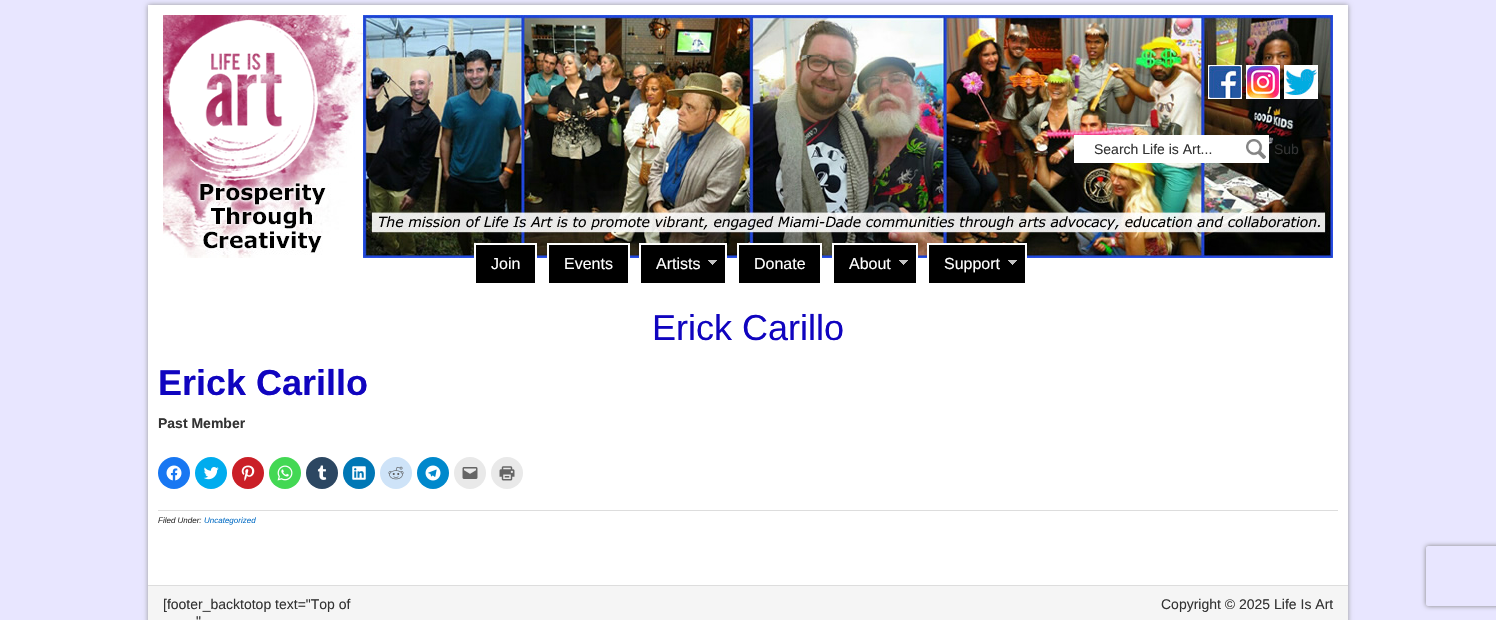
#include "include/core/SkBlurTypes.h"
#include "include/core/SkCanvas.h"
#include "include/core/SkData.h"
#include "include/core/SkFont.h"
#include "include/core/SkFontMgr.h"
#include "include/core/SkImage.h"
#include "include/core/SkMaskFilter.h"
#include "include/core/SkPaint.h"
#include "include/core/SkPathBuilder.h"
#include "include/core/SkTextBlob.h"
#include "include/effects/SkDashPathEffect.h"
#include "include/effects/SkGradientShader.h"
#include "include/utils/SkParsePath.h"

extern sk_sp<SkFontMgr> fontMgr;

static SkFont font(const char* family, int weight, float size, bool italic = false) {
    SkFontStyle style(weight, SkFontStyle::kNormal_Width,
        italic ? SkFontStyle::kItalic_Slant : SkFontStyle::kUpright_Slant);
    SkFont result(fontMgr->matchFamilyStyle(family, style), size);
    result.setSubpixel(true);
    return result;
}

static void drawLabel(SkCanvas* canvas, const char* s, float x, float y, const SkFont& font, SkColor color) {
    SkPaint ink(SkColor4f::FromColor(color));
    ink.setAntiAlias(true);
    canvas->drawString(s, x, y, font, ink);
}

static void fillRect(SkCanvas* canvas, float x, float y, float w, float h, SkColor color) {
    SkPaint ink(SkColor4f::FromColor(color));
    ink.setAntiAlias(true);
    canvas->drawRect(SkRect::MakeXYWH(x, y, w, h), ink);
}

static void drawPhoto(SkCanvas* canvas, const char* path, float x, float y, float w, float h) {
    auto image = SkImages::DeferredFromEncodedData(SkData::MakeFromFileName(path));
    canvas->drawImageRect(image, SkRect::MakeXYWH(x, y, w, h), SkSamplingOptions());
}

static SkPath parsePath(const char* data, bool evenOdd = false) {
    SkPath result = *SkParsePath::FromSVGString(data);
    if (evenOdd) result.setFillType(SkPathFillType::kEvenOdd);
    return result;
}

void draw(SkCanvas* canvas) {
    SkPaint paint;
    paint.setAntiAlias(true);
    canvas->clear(0xFFE8E6FF);
    paint.setColor(0xFF999999);
    paint.setMaskFilter(SkMaskFilter::MakeBlur(kNormal_SkBlurStyle, 2.5f));
    canvas->drawRect(SkRect::MakeXYWH(148, 5, 1200, 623), paint);
    paint.setMaskFilter(nullptr);
    fillRect(canvas, 148, 5, 1200, 580, 0xFFFFFFFF);
    drawPhoto(canvas, "assets/img1.png", 163, 15, 1170, 243);
    drawPhoto(canvas, "assets/img2.png", 168, 20, 150, 161);
    drawPhoto(canvas, "assets/img3.png", 1208, 65, 34, 34);
    drawPhoto(canvas, "assets/img4.png", 1246, 65, 34, 34);
    drawPhoto(canvas, "assets/img5.png", 1284, 65, 34, 34);
    fillRect(canvas, 1074, 135, 195, 28, 0xFFFFFFFF);
    drawPhoto(canvas, "assets/img6.png", 1246, 139, 20, 20);
    SkFont font1 = font("Liberation Sans", 400, 14);
    drawLabel(canvas, "Search Life is Art...", 1094, 154, font1, 0xFF333333);
    drawLabel(canvas, "Sub", 1274, 154, font1, 0xFF333333);
    paint.setColor(0xFF000000);
    canvas->drawRect(SkRect::MakeXYWH(475, 244, 61, 40), paint);
    paint.setStroke(true);
    paint.setStrokeWidth(2);
    paint.setColor(0xFFFFFFFF);
    canvas->drawRect(SkRect::MakeXYWH(475, 244, 61, 40), paint);
    SkFont font2 = font("Liberation Sans", 400, 16);
    drawLabel(canvas, "Join", 491, 269, font2, 0xFFFFFFFF);
    paint.setStroke(false);
    paint.setColor(0xFF000000);
    canvas->drawRect(SkRect::MakeXYWH(548, 244, 81, 40), paint);
    paint.setStroke(true);
    paint.setColor(0xFFFFFFFF);
    canvas->drawRect(SkRect::MakeXYWH(548, 244, 81, 40), paint);
    drawLabel(canvas, "Events", 564, 269, font2, 0xFFFFFFFF);
    paint.setStroke(false);
    paint.setColor(0xFF000000);
    canvas->drawRect(SkRect::MakeXYWH(640, 244, 86, 40), paint);
    paint.setStroke(true);
    paint.setColor(0xFFFFFFFF);
    canvas->drawRect(SkRect::MakeXYWH(640, 244, 86, 40), paint);
    drawLabel(canvas, "Artists", 656, 269, font2, 0xFFFFFFFF);
    drawPhoto(canvas, "assets/img7.png", 708, 260, 9, 5);
    paint.setStroke(false);
    paint.setColor(0xFF000000);
    canvas->drawRect(SkRect::MakeXYWH(738, 244, 83, 40), paint);
    paint.setStroke(true);
    paint.setColor(0xFFFFFFFF);
    canvas->drawRect(SkRect::MakeXYWH(738, 244, 83, 40), paint);
    drawLabel(canvas, "Donate", 754, 269, font2, 0xFFFFFFFF);
    paint.setStroke(false);
    paint.setColor(0xFF000000);
    canvas->drawRect(SkRect::MakeXYWH(833, 244, 84, 40), paint);
    paint.setStroke(true);
    paint.setColor(0xFFFFFFFF);
    canvas->drawRect(SkRect::MakeXYWH(833, 244, 84, 40), paint);
    drawLabel(canvas, "About", 849, 269, font2, 0xFFFFFFFF);
    drawPhoto(canvas, "assets/img7.png", 899, 260, 9, 5);
    paint.setStroke(false);
    paint.setColor(0xFF000000);
    canvas->drawRect(SkRect::MakeXYWH(928, 244, 98, 40), paint);
    paint.setStroke(true);
    paint.setColor(0xFFFFFFFF);
    canvas->drawRect(SkRect::MakeXYWH(928, 244, 98, 40), paint);
    drawLabel(canvas, "Support", 944, 269, font2, 0xFFFFFFFF);
    drawPhoto(canvas, "assets/img7.png", 1008, 260, 9, 5);
    SkFont font3 = font("Liberation Sans", 400, 36);
    drawLabel(canvas, "Erick Carillo", 652, 340, font3, 0xFF1004BF);
    SkFont font4 = font("Liberation Sans", 700, 36);
    drawLabel(canvas, "Erick Carillo", 158, 395, font4, 0xFF1004BF);
    SkFont font5 = font("Liberation Sans", 700, 14);
    drawLabel(canvas, "Past Member", 158, 428, font5, 0xFF333333);
    paint.setStroke(false);
    paint.setColor(0xFF1877F2);
    canvas->drawCircle(174, 473, 16, paint);
    drawPhoto(canvas, "assets/img8.png", 166, 465, 16, 16);
    paint.setColor(0xFF00ACEE);
    canvas->drawCircle(211, 473, 16, paint);
    drawPhoto(canvas, "assets/img9.png", 203, 467, 16, 13);
    paint.setColor(0xFFCA1F27);
    canvas->drawCircle(248, 473, 16, paint);
    drawPhoto(canvas, "assets/img10.png", 241, 465, 14, 16);
    paint.setColor(0xFF43D854);
    canvas->drawCircle(285, 473, 16, paint);
    drawPhoto(canvas, "assets/img11.png", 277, 465, 16, 16);
    paint.setColor(0xFF2C4762);
    canvas->drawCircle(322, 473, 16, paint);
    drawPhoto(canvas, "assets/img12.png", 317, 465, 10, 15);
    paint.setColor(0xFF0077B5);
    canvas->drawCircle(359, 473, 16, paint);
    drawPhoto(canvas, "assets/img13.png", 352, 466, 14, 14);
    paint.setColor(0xFFCEE3F8);
    canvas->drawCircle(396, 473, 16, paint);
    drawPhoto(canvas, "assets/img14.png", 388, 466, 16, 14);
    paint.setColor(0xFF0088CC);
    canvas->drawCircle(433, 473, 16, paint);
    drawPhoto(canvas, "assets/img15.png", 425, 465, 16, 16);
    paint.setColor(0xFFE9E9E9);
    canvas->drawCircle(470, 473, 16, paint);
    drawPhoto(canvas, "assets/img16.png", 462, 467, 16, 12);
    canvas->drawCircle(507, 473, 16, paint);
    drawPhoto(canvas, "assets/img17.png", 499, 466, 16, 15);
    fillRect(canvas, 158, 510, 1180, 1, 0xFFDDDDDD);
    SkFont font6 = font("Liberation Sans", 400, 8, true);
    drawLabel(canvas, "Filed Under:", 158, 523, font6, 0xFF333333);
    drawLabel(canvas, "Uncategorized", 204, 523, font6, 0xFF0D72C7);
    fillRect(canvas, 148, 586, 1200, 34, 0xFFF5F5F5);
    fillRect(canvas, 148, 585, 1200, 1, 0xFFDDDDDD);
    drawLabel(canvas, "[footer_backtotop text=\"Top of", 163, 609, font1, 0xFF333333);
    drawLabel(canvas, "\"", 196, 626, font1, 0xFF333333);
    drawLabel(canvas, "Copyright © 2025 Life Is Art", 1161, 609, font1, 0xFF333333);
    canvas->save();
    canvas->clipPath(parsePath("M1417 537H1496V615H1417ZM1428 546H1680C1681 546 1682 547 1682 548V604C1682 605 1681 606 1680 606H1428C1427 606 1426 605 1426 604V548C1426 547 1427 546 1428 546Z", true), true);
    paint.setColor(0xFF808080);
    paint.setMaskFilter(SkMaskFilter::MakeBlur(kNormal_SkBlurStyle, 2.5f));
    canvas->drawRoundRect(SkRect::MakeXYWH(1426, 546, 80, 60), 2, 2, paint);
    paint.setMaskFilter(nullptr);
    canvas->restore();
}
